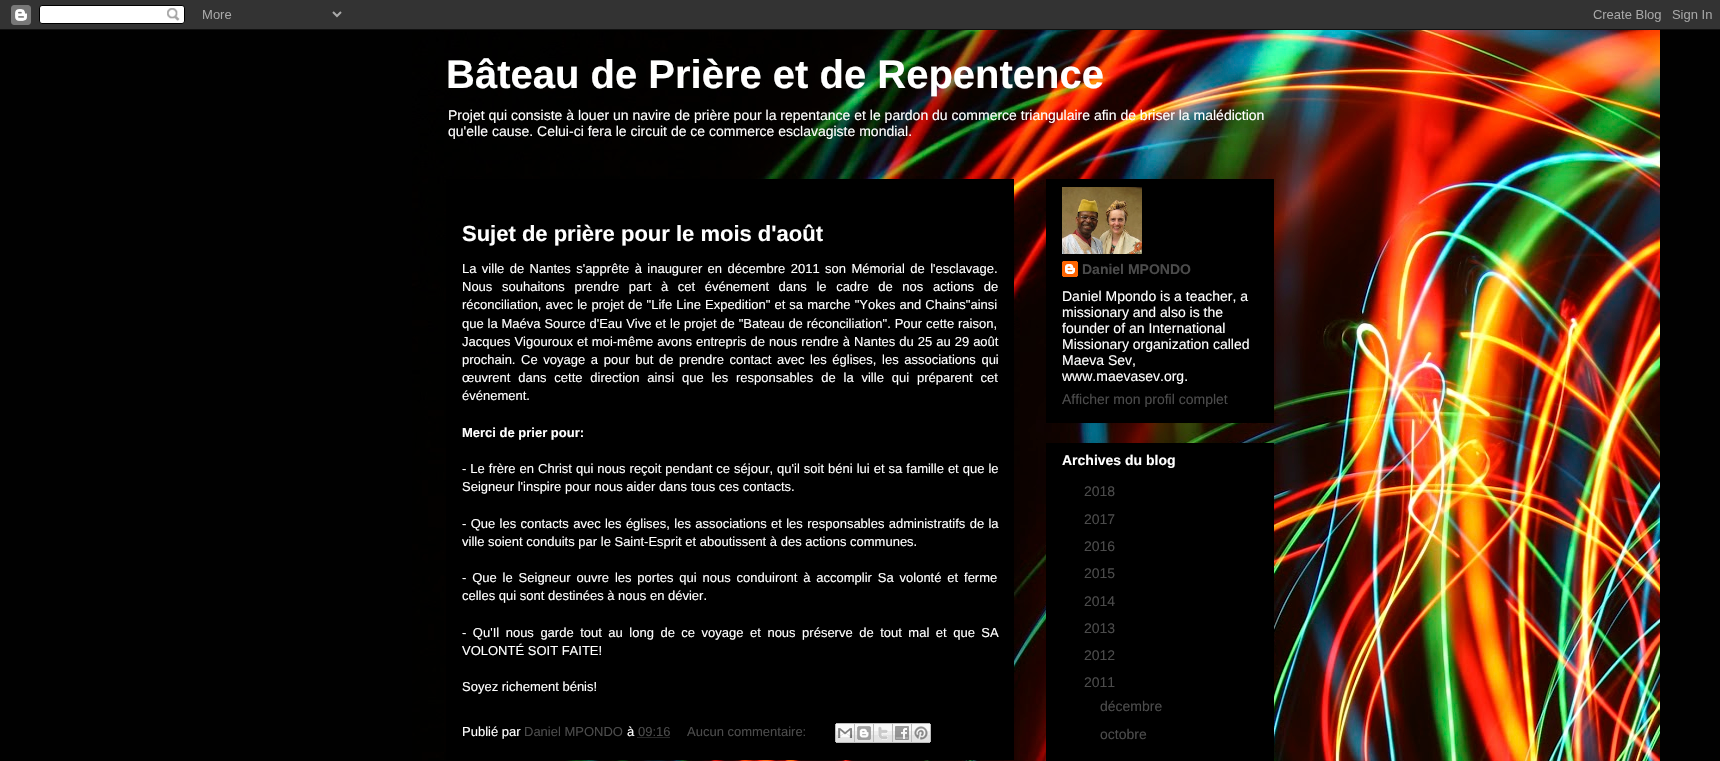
#include "include/core/SkBlurTypes.h"
#include "include/core/SkCanvas.h"
#include "include/core/SkData.h"
#include "include/core/SkFont.h"
#include "include/core/SkFontMgr.h"
#include "include/core/SkImage.h"
#include "include/core/SkMaskFilter.h"
#include "include/core/SkPaint.h"
#include "include/core/SkPathBuilder.h"
#include "include/core/SkTextBlob.h"
#include "include/effects/SkDashPathEffect.h"
#include "include/effects/SkGradientShader.h"
#include "include/utils/SkParsePath.h"

extern sk_sp<SkFontMgr> fontMgr;

static SkFont font(const char* family, int weight, float size, bool italic = false) {
    SkFontStyle style(weight, SkFontStyle::kNormal_Width,
        italic ? SkFontStyle::kItalic_Slant : SkFontStyle::kUpright_Slant);
    SkFont result(fontMgr->matchFamilyStyle(family, style), size);
    result.setSubpixel(true);
    return result;
}

static void drawLabel(SkCanvas* canvas, const char* s, float x, float y, const SkFont& font, SkColor color) {
    SkPaint ink(SkColor4f::FromColor(color));
    ink.setAntiAlias(true);
    canvas->drawString(s, x, y, font, ink);
}

static void drawTracked(SkCanvas* canvas, const char* s, float x, float y, const SkFont& font, const SkPaint& ink, float letter, float word) {
    std::vector<SkGlyphID> glyphs(font.countText(s, strlen(s), SkTextEncoding::kUTF8));
    std::vector<float> xs(glyphs.size());
    font.textToGlyphs(s, strlen(s), SkTextEncoding::kUTF8, glyphs);
    font.getXPos(glyphs, xs, x);
    float extra = 0;
    for (size_t i = 0; i < glyphs.size(); i++) {
        xs[i] += extra;
        extra += letter + word * (glyphs[i] == font.unicharToGlyph(' '));
    }
    canvas->drawTextBlob(SkTextBlob::MakeFromPosHGlyphs(glyphs, xs, y, font), 0, 0, ink);
}

static void fillRect(SkCanvas* canvas, float x, float y, float w, float h, SkColor color) {
    SkPaint ink(SkColor4f::FromColor(color));
    ink.setAntiAlias(true);
    canvas->drawRect(SkRect::MakeXYWH(x, y, w, h), ink);
}

static void drawPhoto(SkCanvas* canvas, const char* path, float x, float y, float w, float h) {
    auto image = SkImages::DeferredFromEncodedData(SkData::MakeFromFileName(path));
    canvas->drawImageRect(image, SkRect::MakeXYWH(x, y, w, h), SkSamplingOptions());
}

static SkPath parsePath(const char* data, bool evenOdd = false) {
    SkPath result = *SkParsePath::FromSVGString(data);
    if (evenOdd) result.setFillType(SkPathFillType::kEvenOdd);
    return result;
}

void draw(SkCanvas* canvas) {
    SkPaint paint;
    paint.setAntiAlias(true);
    canvas->clear(0xFF010101);
    drawPhoto(canvas, "assets/img1.png", 412, 30, 1248, 731);
    drawPhoto(canvas, "assets/img2.png", 0, 0, 1720, 30);
    SkFont font1 = font("Liberation Sans", 700, 40);
    drawLabel(canvas, "Bâteau de Prière et de Repentence", 446, 88, font1, 0xFFFFFFFF);
    SkFont font2 = font("Liberation Sans", 400, 14);
    drawLabel(canvas, "Projet qui consiste à louer un navire de prière pour la repentance et le pardon du commerce triangulaire afin de briser la malédiction", 448, 120, font2, 0xFFFFFFFF);
    drawLabel(canvas, "qu'elle cause. Celui-ci fera le circuit de ce commerce esclavagiste mondial.", 448, 136, font2, 0xFFFFFFFF);
    fillRect(canvas, 446, 179, 568, 581, 0xFF000000);
    SkFont font3 = font("Liberation Sans", 700, 22);
    drawLabel(canvas, "Sujet de prière pour le mois d'août", 462, 241, font3, 0xFFFFFFFF);
    SkFont font4 = font("Liberation Sans", 400, 13);
    paint.setColor(0xFFFFFFFF);
    drawTracked(canvas, "La ville de Nantes s'apprête à inaugurer en décembre 2011 son Mémorial de l'esclavage.", 462, 273, font4, paint, 0, 1.8f);
    drawTracked(canvas, "Nous souhaitons prendre part à cet événement dans le cadre de nos actions de", 462, 291, font4, paint, 0, 6);
    drawTracked(canvas, "réconciliation, avec le projet de \"Life Line Expedition\" et sa marche \"Yokes and Chains\"ainsi", 462, 309, font4, paint, 0, 0.5f);
    drawTracked(canvas, "que la Maéva Source d'Eau Vive et le projet de \"Bateau de réconciliation\". Pour cette raison,", 462, 328, font4, paint, 0, 0.25f);
    drawTracked(canvas, "Jacques Vigouroux et moi-même avons entrepris de nous rendre à Nantes du 25 au 29 août", 462, 346, font4, paint, 0, 0.4f);
    drawTracked(canvas, "prochain. Ce voyage a pour but de prendre contact avec les églises, les associations qui", 462, 364, font4, paint, 0, 2);
    drawTracked(canvas, "œuvrent dans cette direction ainsi que les responsables de la ville qui préparent cet", 462, 382, font4, paint, 0, 4.25f);
    drawLabel(canvas, "événement.", 462, 400, font4, 0xFFFFFFFF);
    SkFont font5 = font("Liberation Sans", 700, 13);
    drawLabel(canvas, "Merci de prier pour:", 462, 437, font5, 0xFFFFFFFF);
    drawTracked(canvas, "- Le frère en Christ qui nous reçoit pendant ce séjour, qu'il soit béni lui et sa famille et que le", 462, 473, font4, paint, 0, 0.4f);
    drawLabel(canvas, "Seigneur l'inspire pour nous aider dans tous ces contacts.", 462, 491, font4, 0xFFFFFFFF);
    drawTracked(canvas, "- Que les contacts avec les églises, les associations et les responsables administratifs de la", 462, 528, font4, paint, 0, 0.7f);
    drawLabel(canvas, "ville soient conduits par le Saint-Esprit et aboutissent à des actions communes.", 462, 546, font4, 0xFFFFFFFF);
    drawTracked(canvas, "- Que le Seigneur ouvre les portes qui nous conduiront à accomplir Sa volonté et ferme", 462, 582, font4, paint, 0, 2.25f);
    drawLabel(canvas, "celles qui sont destinées à nous en dévier.", 462, 600, font4, 0xFFFFFFFF);
    drawTracked(canvas, "- Qu'Il nous garde tout au long de ce voyage et nous préserve de tout mal et que SA", 462, 637, font4, paint, 0, 2.9f);
    drawLabel(canvas, "VOLONTÉ SOIT FAITE!", 462, 655, font4, 0xFFFFFFFF);
    drawLabel(canvas, "Soyez richement bénis!", 462, 691, font4, 0xFFFFFFFF);
    drawLabel(canvas, "Publié par", 462, 736, font4, 0xFFFFFFFF);
    drawLabel(canvas, "Daniel MPONDO", 524, 736, font4, 0xFF4B4B4B);
    drawLabel(canvas, "à", 627, 736, font4, 0xFFFFFFFF);
    drawLabel(canvas, "09:16", 638, 736, font4, 0xFF4B4B4B);
    paint.setStroke(true);
    paint.setStrokeWidth(1);
    paint.setColor(0xFF4B4B4B);
    paint.setPathEffect(SkDashPathEffect::Make({{1, 1}}, 0));
    canvas->drawPath(parsePath("M637.5 737.5H670"), paint);
    paint.setPathEffect(nullptr);
    drawLabel(canvas, "Aucun commentaire:", 687, 736, font4, 0xFF4B4B4B);
    drawPhoto(canvas, "assets/img3.png", 835, 723, 20, 20);
    drawPhoto(canvas, "assets/img4.png", 855, 723, 19, 20);
    drawPhoto(canvas, "assets/img5.png", 874, 723, 19, 20);
    drawPhoto(canvas, "assets/img6.png", 893, 723, 19, 20);
    drawPhoto(canvas, "assets/img7.png", 912, 723, 19, 20);
    fillRect(canvas, 1046, 179, 228, 244, 0xFF000000);
    drawPhoto(canvas, "assets/img8.png", 1062, 187, 80, 67);
    drawPhoto(canvas, "assets/img9.png", 1062, 261, 16, 16);
    SkFont font6 = font("Liberation Sans", 700, 14);
    drawLabel(canvas, "Daniel MPONDO", 1082, 274, font6, 0xFF4B4B4B);
    drawLabel(canvas, "Daniel Mpondo is a teacher, a", 1062, 301, font2, 0xFFFFFFFF);
    drawLabel(canvas, "missionary and also is the", 1062, 317, font2, 0xFFFFFFFF);
    drawLabel(canvas, "founder of an International", 1062, 333, font2, 0xFFFFFFFF);
    drawLabel(canvas, "Missionary organization called", 1062, 349, font2, 0xFFFFFFFF);
    drawLabel(canvas, "Maeva Sev,", 1062, 365, font2, 0xFFFFFFFF);
    drawLabel(canvas, "www.maevasev.org.", 1062, 381, font2, 0xFFFFFFFF);
    drawLabel(canvas, "Afficher mon profil complet", 1062, 404, font2, 0xFF4B4B4B);
    fillRect(canvas, 1046, 443, 228, 318, 0xFF000000);
    drawLabel(canvas, "Archives du blog", 1062, 465, font6, 0xFFFFFFFF);
    drawLabel(canvas, "2018", 1084, 496, font2, 0xFF4B4B4B);
    drawLabel(canvas, "2017", 1084, 524, font2, 0xFF4B4B4B);
    drawLabel(canvas, "2016", 1084, 551, font2, 0xFF4B4B4B);
    drawLabel(canvas, "2015", 1084, 578, font2, 0xFF4B4B4B);
    drawLabel(canvas, "2014", 1084, 606, font2, 0xFF4B4B4B);
    drawLabel(canvas, "2013", 1084, 633, font2, 0xFF4B4B4B);
    drawLabel(canvas, "2012", 1084, 660, font2, 0xFF4B4B4B);
    drawLabel(canvas, "2011", 1084, 687, font2, 0xFF4B4B4B);
    drawLabel(canvas, "décembre", 1100, 711, font2, 0xFF4B4B4B);
    drawLabel(canvas, "octobre", 1100, 739, font2, 0xFF4B4B4B);
}
